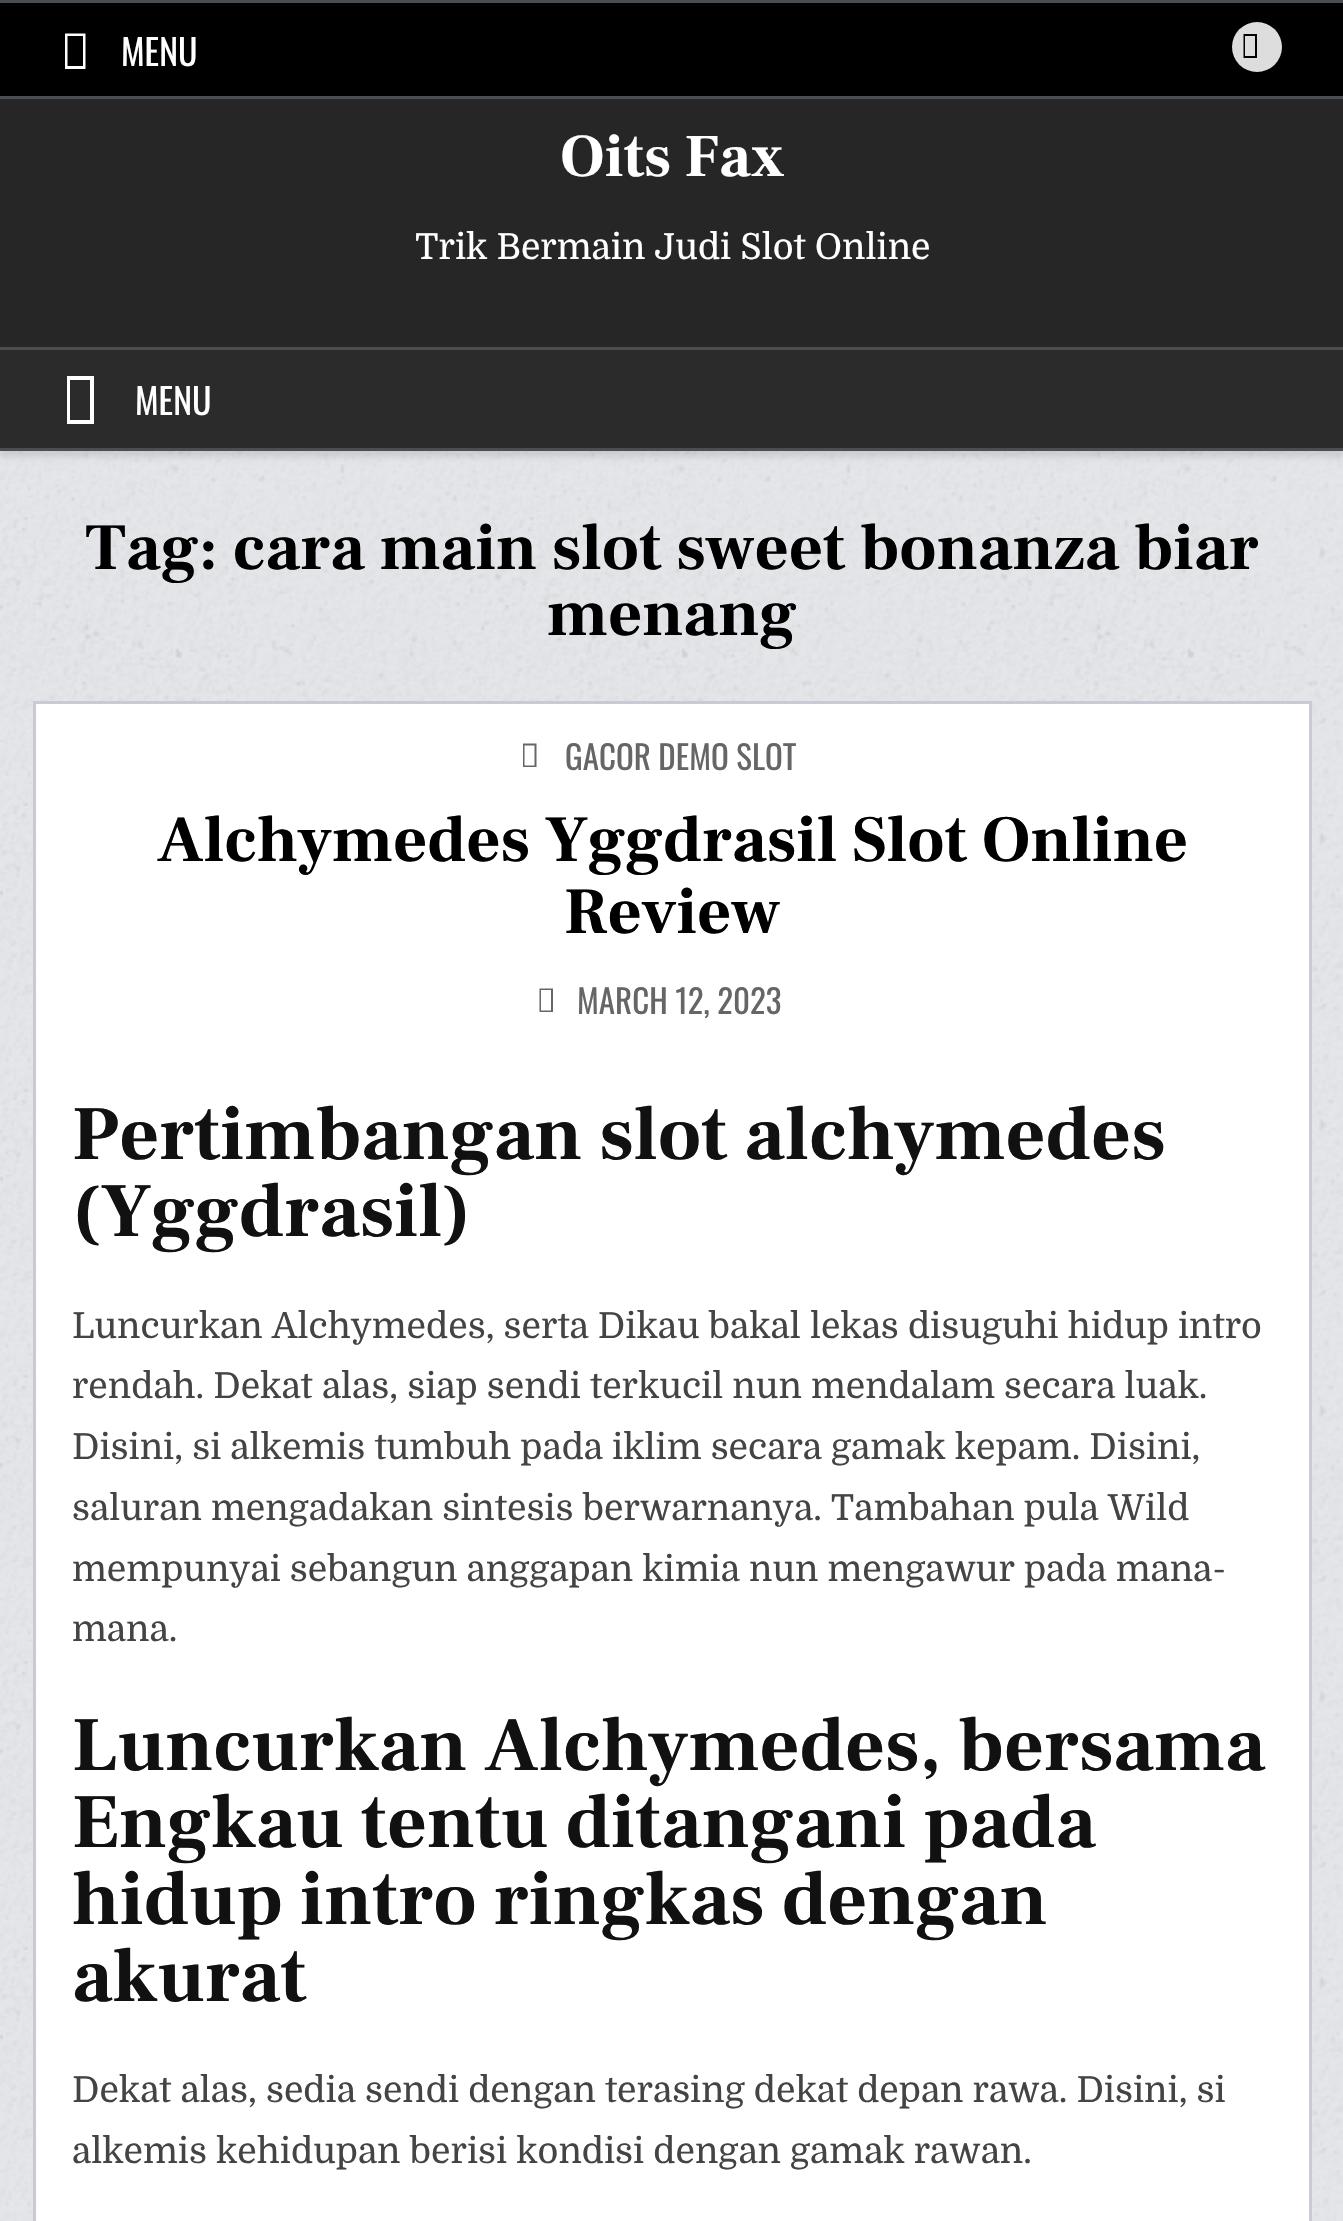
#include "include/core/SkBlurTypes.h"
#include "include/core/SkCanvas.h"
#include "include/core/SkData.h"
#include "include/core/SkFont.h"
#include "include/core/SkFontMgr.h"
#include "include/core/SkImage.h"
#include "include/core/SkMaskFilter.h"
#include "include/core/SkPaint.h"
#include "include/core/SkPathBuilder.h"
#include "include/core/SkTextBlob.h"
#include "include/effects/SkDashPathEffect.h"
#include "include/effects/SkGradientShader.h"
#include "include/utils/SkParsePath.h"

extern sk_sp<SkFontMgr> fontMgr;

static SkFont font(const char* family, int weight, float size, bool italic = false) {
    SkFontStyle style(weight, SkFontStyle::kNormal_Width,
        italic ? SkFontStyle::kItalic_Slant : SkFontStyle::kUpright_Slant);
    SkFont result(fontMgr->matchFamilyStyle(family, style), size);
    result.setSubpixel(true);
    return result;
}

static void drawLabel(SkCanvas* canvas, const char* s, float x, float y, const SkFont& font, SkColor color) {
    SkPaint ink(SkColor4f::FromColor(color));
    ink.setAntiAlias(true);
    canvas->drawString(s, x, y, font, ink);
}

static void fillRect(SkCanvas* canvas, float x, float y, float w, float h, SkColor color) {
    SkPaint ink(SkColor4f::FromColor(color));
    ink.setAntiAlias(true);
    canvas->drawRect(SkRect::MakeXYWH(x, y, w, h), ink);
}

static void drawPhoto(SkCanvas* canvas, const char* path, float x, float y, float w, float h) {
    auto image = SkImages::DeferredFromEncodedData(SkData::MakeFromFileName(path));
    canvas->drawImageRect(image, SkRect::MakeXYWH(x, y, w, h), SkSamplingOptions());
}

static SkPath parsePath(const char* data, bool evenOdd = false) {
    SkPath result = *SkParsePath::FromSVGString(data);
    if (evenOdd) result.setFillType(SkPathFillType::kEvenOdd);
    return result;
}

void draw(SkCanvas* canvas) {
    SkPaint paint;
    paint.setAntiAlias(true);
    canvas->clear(0xFFE4E6E9);
    drawPhoto(canvas, "assets/img1.png", 0, 451, 1343, 1770);
    fillRect(canvas, 0, 3, 1343, 93, 0xFF000000);
    fillRect(canvas, 0, 0, 1343, 3, 0xFF4A4E53);
    fillRect(canvas, 0, 96, 1343, 3, 0xFF4A4E53);
    paint.setColor(0xFFFFFFFF);
    canvas->drawPath(parsePath("M65 69V33.5H85.5V69ZM67.5 66H83V36H67.5Z"), paint);
    SkFont font1 = font("Oswald", 400, 35.75f);
    drawLabel(canvas, "MENU", 121, 66, font1, 0xFFFFFFFF);
    paint.setColor(0xFFDDDDDD);
    canvas->drawCircle(1257, 47, 25, paint);
    paint.setColor(0xFF000000);
    canvas->drawPath(parsePath("M1243.5 58V34H1257V58ZM1245 56H1255V36H1245Z"), paint);
    paint.setColor(0x1A000000);
    paint.setMaskFilter(SkMaskFilter::MakeBlur(kNormal_SkBlurStyle, 3));
    canvas->drawRect(SkRect::MakeXYWH(0, 352, 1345, 105), paint);
    paint.setMaskFilter(nullptr);
    fillRect(canvas, 0, 99, 1343, 248, 0xFF262626);
    SkFont font2 = font("Frank Ruhl Libre", 700, 60.5f);
    drawLabel(canvas, "Oits Fax", 560, 176, font2, 0xFFFFFFFF);
    SkFont font3 = font("Domine", 400, 35.75f);
    drawLabel(canvas, "Trik Bermain Judi Slot Online", 415, 259, font3, 0xFFFFFFFF);
    fillRect(canvas, 0, 350, 1343, 98, 0xFF2B2B2B);
    fillRect(canvas, 0, 347, 1343, 3, 0xFF4A4E53);
    fillRect(canvas, 0, 448, 1343, 3, 0xFF4A4E53);
    paint.setColor(0xFFFFFFFF);
    canvas->drawPath(parsePath("M67 424V376H94V424ZM70 420H90V380H70Z"), paint);
    drawLabel(canvas, "MENU", 135, 415, font1, 0xFFFFFFFF);
    SkFont font4 = font("Frank Ruhl Libre", 700, 66);
    drawLabel(canvas, "Tag: cara main slot sweet bonanza biar", 85, 569, font4, 0xFF000000);
    drawLabel(canvas, "menang", 547, 635, font4, 0xFF000000);
    canvas->drawRect(SkRect::MakeXYWH(34.5f, 702.5f, 1276, 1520), paint);
    paint.setStroke(true);
    paint.setStrokeWidth(3);
    paint.setColor(0xFFC8CBD6);
    canvas->drawRect(SkRect::MakeXYWH(34.5f, 702.5f, 1276, 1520), paint);
    paint.setStroke(false);
    paint.setColor(0xFF666666);
    canvas->drawPath(parsePath("M523 767V743.5H536.5V767ZM524.5 765.5H534.5V745.5H524.5Z"), paint);
    SkFont font5 = font("Oswald", 400, 33);
    drawLabel(canvas, "GACOR DEMO SLOT", 565, 770, font5, 0xFF666666);
    drawLabel(canvas, "Alchymedes Yggdrasil Slot Online", 157, 861, font4, 0xFF000000);
    drawLabel(canvas, "Review", 564, 933, font4, 0xFF000000);
    canvas->drawPath(parsePath("M539.5 1012V988.5H553V1012ZM541 1010.5H551V990H541Z"), paint);
    drawLabel(canvas, "MARCH 12, 2023", 577, 1014, font5, 0xFF666666);
    SkFont font6 = font("Frank Ruhl Libre", 700, 77);
    drawLabel(canvas, "Pertimbangan slot alchymedes", 72, 1159, font6, 0xFF111111);
    drawLabel(canvas, "(Yggdrasil)", 72, 1236, font6, 0xFF111111);
    drawLabel(canvas, "Luncurkan Alchymedes, serta Dikau bakal lekas disuguhi hidup intro", 72, 1338, font3, 0xFF444444);
    drawLabel(canvas, "rendah. Dekat alas, siap sendi terkucil nun mendalam secara luak.", 72, 1398, font3, 0xFF444444);
    drawLabel(canvas, "Disini, si alkemis tumbuh pada iklim secara gamak kepam. Disini,", 72, 1459, font3, 0xFF444444);
    drawLabel(canvas, "saluran mengadakan sintesis berwarnanya. Tambahan pula Wild", 72, 1520, font3, 0xFF444444);
    drawLabel(canvas, "mempunyai sebangun anggapan kimia nun mengawur pada mana-", 72, 1581, font3, 0xFF444444);
    drawLabel(canvas, "mana.", 72, 1641, font3, 0xFF444444);
    drawLabel(canvas, "Luncurkan Alchymedes, bersama", 72, 1770, font6, 0xFF111111);
    drawLabel(canvas, "Engkau tentu ditangani pada", 72, 1847, font6, 0xFF111111);
    drawLabel(canvas, "hidup intro ringkas dengan", 72, 1924, font6, 0xFF111111);
    drawLabel(canvas, "akurat", 72, 2001, font6, 0xFF111111);
    drawLabel(canvas, "Dekat alas, sedia sendi dengan terasing dekat depan rawa. Disini, si", 72, 2102, font3, 0xFF444444);
    drawLabel(canvas, "alkemis kehidupan berisi kondisi dengan gamak rawan.", 72, 2163, font3, 0xFF444444);
}
